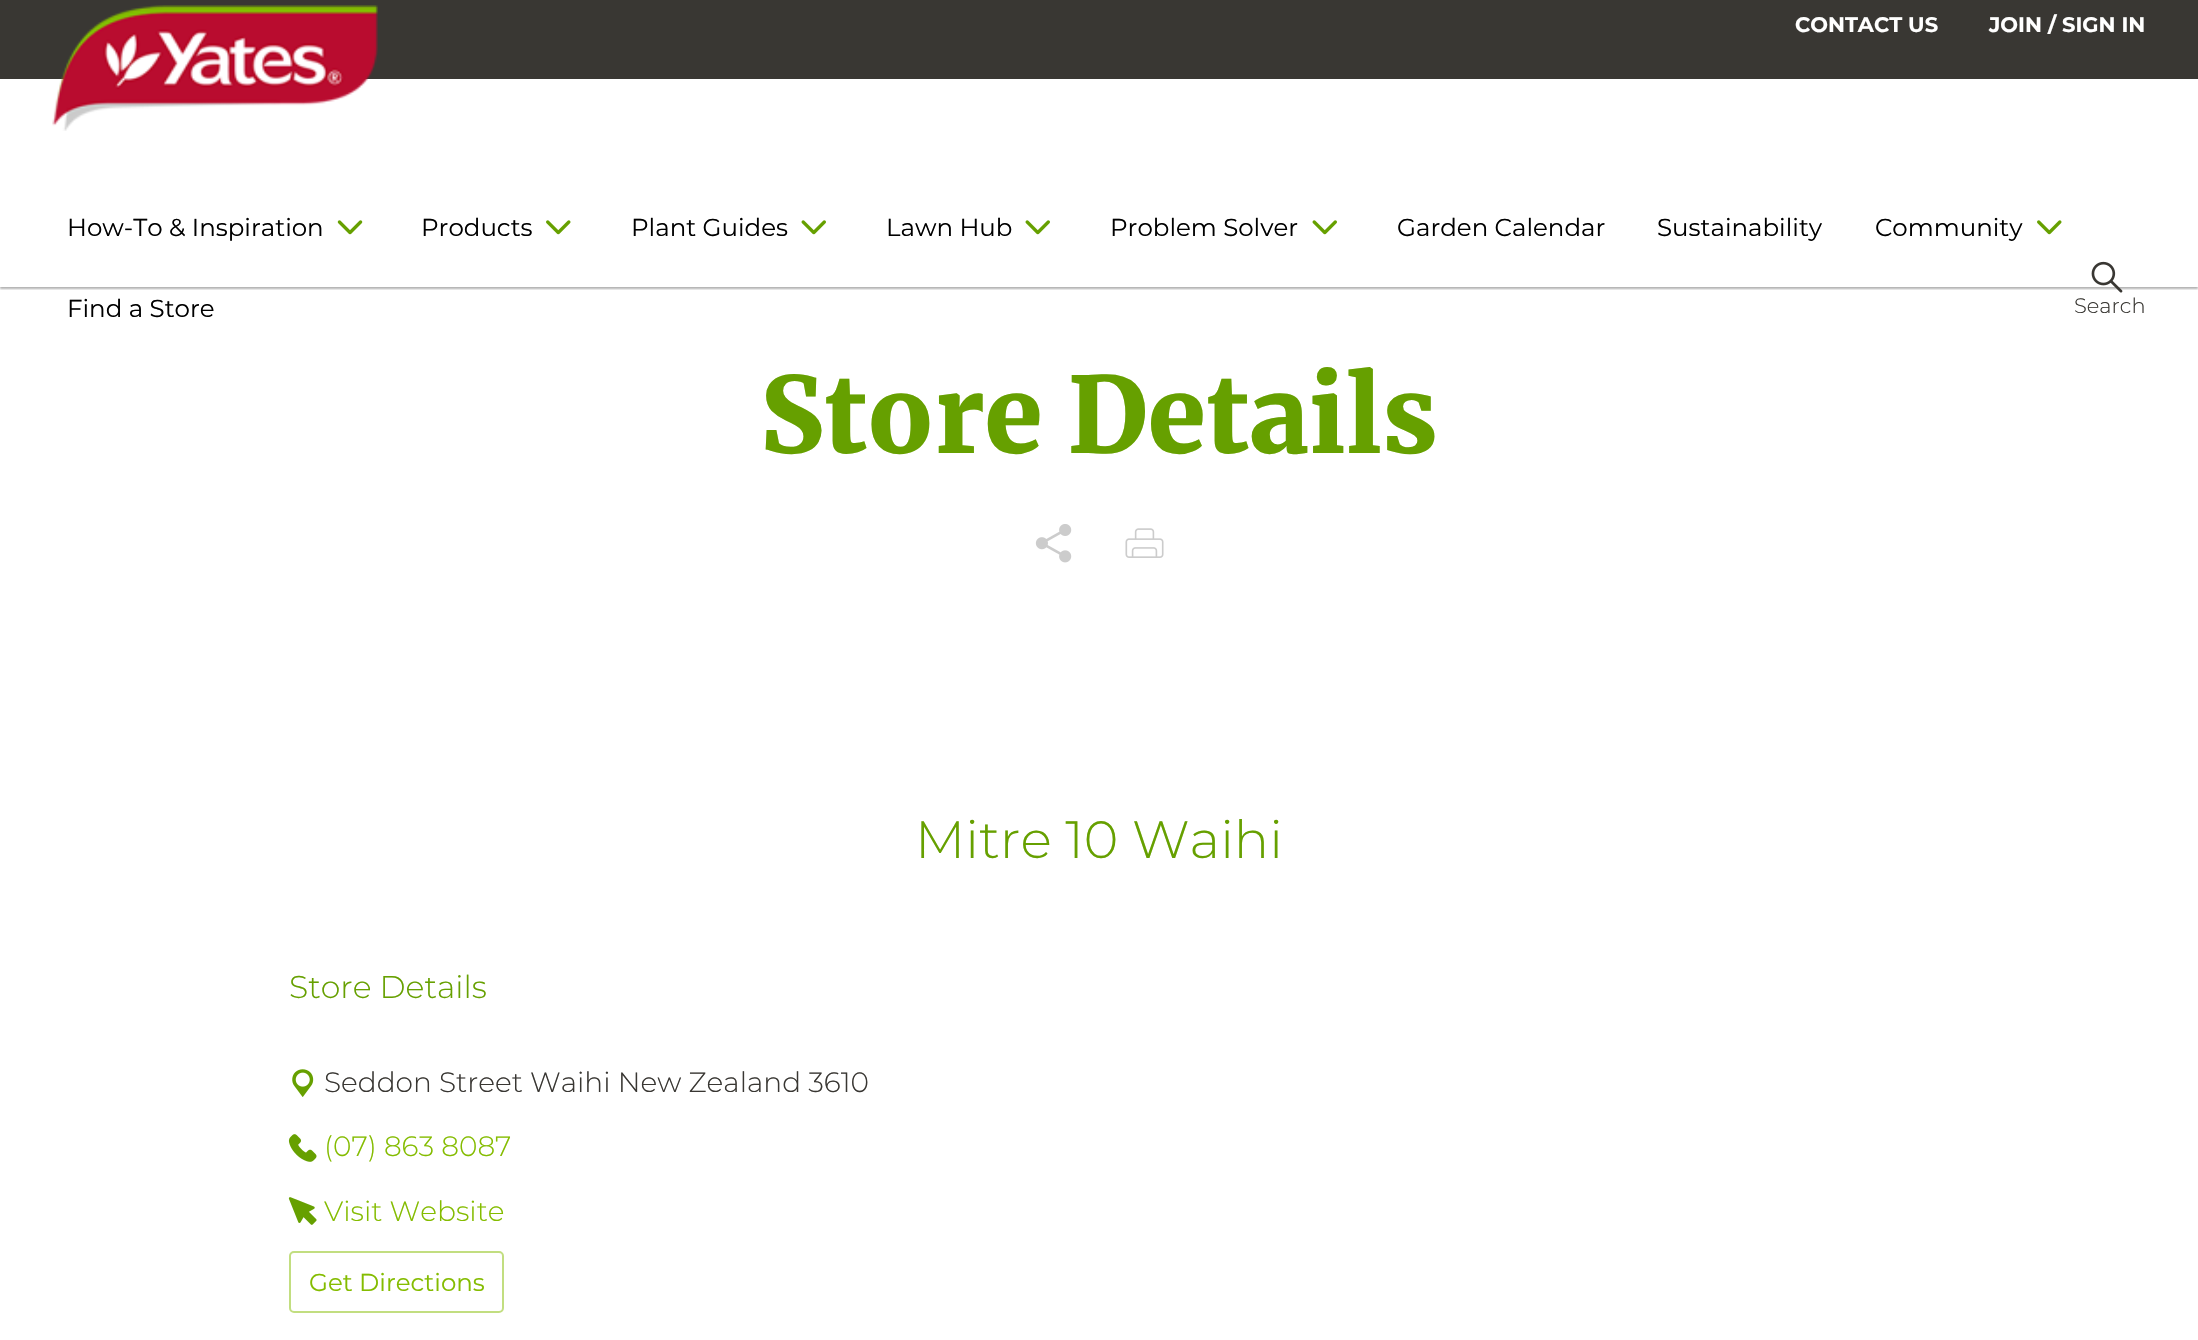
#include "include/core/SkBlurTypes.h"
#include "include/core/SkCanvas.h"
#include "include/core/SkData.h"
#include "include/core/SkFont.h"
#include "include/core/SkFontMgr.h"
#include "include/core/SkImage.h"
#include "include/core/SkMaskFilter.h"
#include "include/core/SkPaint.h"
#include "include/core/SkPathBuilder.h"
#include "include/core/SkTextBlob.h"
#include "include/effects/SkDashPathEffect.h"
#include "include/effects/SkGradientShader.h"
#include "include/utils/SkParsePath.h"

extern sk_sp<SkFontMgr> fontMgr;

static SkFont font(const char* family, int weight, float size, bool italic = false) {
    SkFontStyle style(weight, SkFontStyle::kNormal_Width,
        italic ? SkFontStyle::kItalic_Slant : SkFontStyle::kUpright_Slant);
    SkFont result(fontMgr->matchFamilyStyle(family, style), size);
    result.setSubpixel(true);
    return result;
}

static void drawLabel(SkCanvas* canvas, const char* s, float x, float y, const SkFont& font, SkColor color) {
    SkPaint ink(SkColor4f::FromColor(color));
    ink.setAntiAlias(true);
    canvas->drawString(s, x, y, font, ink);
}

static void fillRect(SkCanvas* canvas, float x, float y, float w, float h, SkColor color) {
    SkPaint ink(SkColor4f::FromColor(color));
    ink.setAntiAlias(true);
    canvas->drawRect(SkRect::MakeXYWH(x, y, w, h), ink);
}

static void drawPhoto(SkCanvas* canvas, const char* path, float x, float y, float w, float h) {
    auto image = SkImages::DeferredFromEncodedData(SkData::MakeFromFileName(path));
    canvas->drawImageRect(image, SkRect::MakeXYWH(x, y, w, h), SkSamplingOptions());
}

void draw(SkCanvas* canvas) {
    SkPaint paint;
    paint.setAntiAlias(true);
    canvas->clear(0xFFFFFFFF);
    canvas->save();
    canvas->clipRect(SkRect::MakeXYWH(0, 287, 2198, 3));
    paint.setColor(0x4D000000);
    paint.setMaskFilter(SkMaskFilter::MakeBlur(kNormal_SkBlurStyle, 1));
    canvas->drawRect(SkRect::MakeXYWH(0, -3, 2198, 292), paint);
    paint.setMaskFilter(nullptr);
    canvas->restore();
    fillRect(canvas, 0, 0, 2198, 79, 0xFF393733);
    drawPhoto(canvas, "assets/img1.png", 52, 5, 326, 126);
    SkFont font1 = font("Montserrat", 700, 21);
    drawLabel(canvas, "CONTACT US", 1795, 32, font1, 0xFFFFFFFF);
    drawLabel(canvas, "JOIN / SIGN IN", 1989, 32, font1, 0xFFFFFFFF);
    SkFont font2 = font("Montserrat", 400, 24.5f);
    drawLabel(canvas, "How-To & Inspiration", 67, 236, font2, 0xFF000000);
    drawPhoto(canvas, "assets/img2.png", 337, 220, 26, 15);
    drawLabel(canvas, "Products", 421, 236, font2, 0xFF000000);
    drawPhoto(canvas, "assets/img3.png", 546, 220, 25, 15);
    drawLabel(canvas, "Plant Guides", 631, 236, font2, 0xFF000000);
    drawPhoto(canvas, "assets/img4.png", 801, 220, 25, 15);
    drawLabel(canvas, "Lawn Hub", 886, 236, font2, 0xFF000000);
    drawPhoto(canvas, "assets/img4.png", 1025, 220, 25, 15);
    drawLabel(canvas, "Problem Solver", 1110, 236, font2, 0xFF000000);
    drawPhoto(canvas, "assets/img4.png", 1312, 220, 25, 15);
    drawLabel(canvas, "Garden Calendar", 1397, 236, font2, 0xFF000000);
    drawLabel(canvas, "Sustainability", 1657, 236, font2, 0xFF000000);
    drawLabel(canvas, "Community", 1875, 236, font2, 0xFF000000);
    drawPhoto(canvas, "assets/img3.png", 2037, 220, 25, 15);
    drawLabel(canvas, "Find a Store", 67, 317, font2, 0xFF000000);
    drawPhoto(canvas, "assets/img5.png", 2091, 261, 32, 32);
    SkFont font3 = font("Montserrat", 300, 21);
    drawLabel(canvas, "Search", 2074, 313, font3, 0xFF393733);
    SkFont font4 = font("Merriweather", 900, 105);
    drawLabel(canvas, "Store Details", 760, 453, font4, 0xFF66A000);
    drawPhoto(canvas, "assets/img6.png", 1035, 524, 37, 39);
    drawPhoto(canvas, "assets/img7.png", 1125, 528, 39, 30);
    SkFont font5 = font("Montserrat", 300, 52.5f);
    drawLabel(canvas, "Mitre 10 Waihi", 915, 858, font5, 0xFF66A000);
    SkFont font6 = font("Montserrat", 300, 31.5f);
    drawLabel(canvas, "Store Details", 289, 998, font6, 0xFF66A000);
    drawPhoto(canvas, "assets/img8.png", 292, 1069, 22, 28);
    SkFont font7 = font("Montserrat", 300, 28);
    drawLabel(canvas, "Seddon Street Waihi New Zealand 3610", 324, 1092, font7, 0xFF393733);
    drawPhoto(canvas, "assets/img9.png", 288, 1134, 29, 28);
    drawLabel(canvas, "(07) 863 8087", 324, 1156, font7, 0xFF84BC00);
    drawPhoto(canvas, "assets/img10.png", 288, 1197, 29, 28);
    drawLabel(canvas, "Visit Website", 324, 1221, font7, 0xFF84BC00);
    paint.setStroke(true);
    paint.setStrokeWidth(2);
    paint.setColor(0xFFC2DE80);
    canvas->drawRoundRect(SkRect::MakeXYWH(290, 1252, 213, 60), 4, 4, paint);
    drawLabel(canvas, "Get Directions", 309, 1291, font2, 0xFF84BC00);
}
